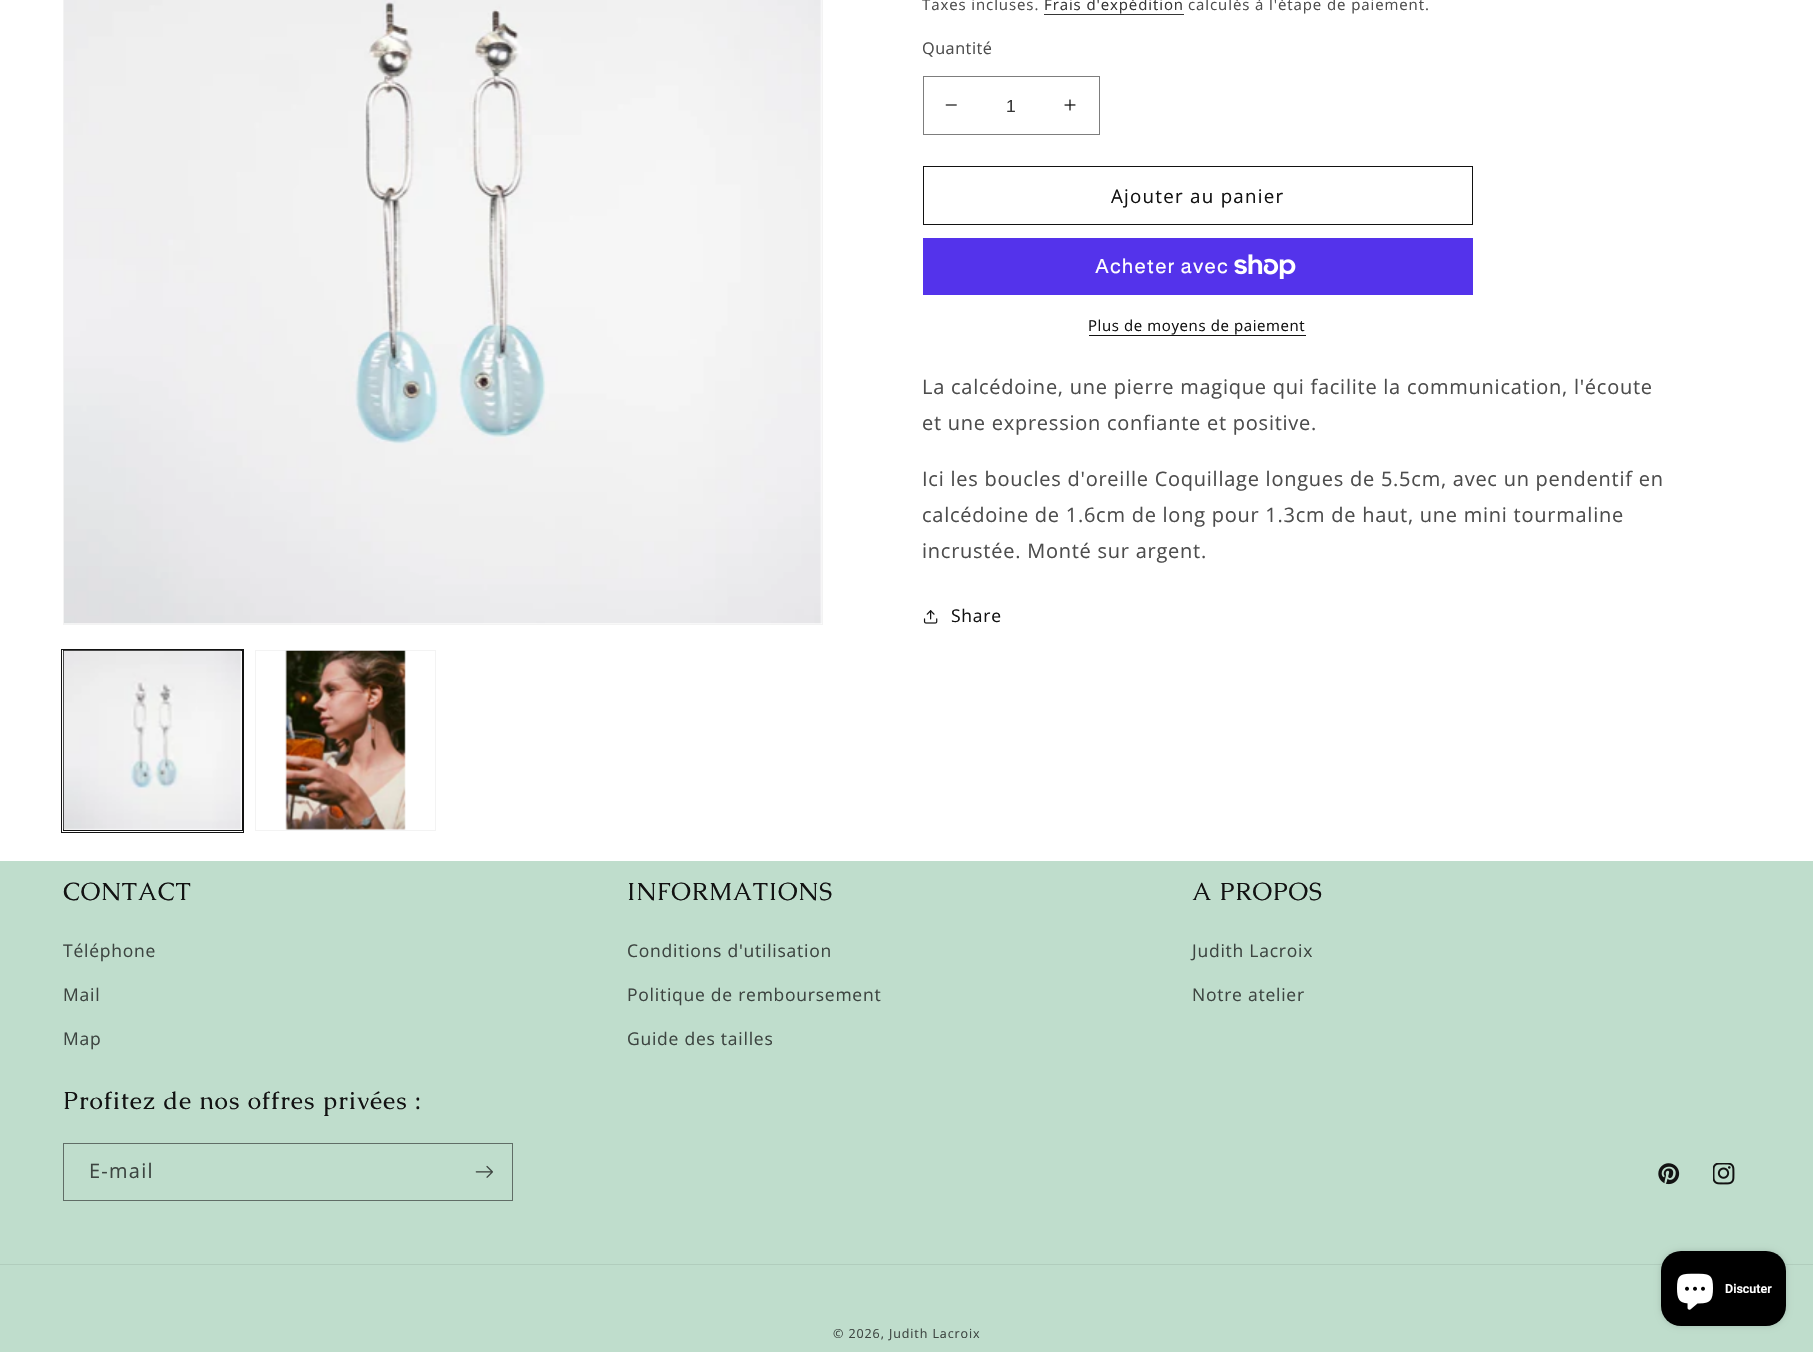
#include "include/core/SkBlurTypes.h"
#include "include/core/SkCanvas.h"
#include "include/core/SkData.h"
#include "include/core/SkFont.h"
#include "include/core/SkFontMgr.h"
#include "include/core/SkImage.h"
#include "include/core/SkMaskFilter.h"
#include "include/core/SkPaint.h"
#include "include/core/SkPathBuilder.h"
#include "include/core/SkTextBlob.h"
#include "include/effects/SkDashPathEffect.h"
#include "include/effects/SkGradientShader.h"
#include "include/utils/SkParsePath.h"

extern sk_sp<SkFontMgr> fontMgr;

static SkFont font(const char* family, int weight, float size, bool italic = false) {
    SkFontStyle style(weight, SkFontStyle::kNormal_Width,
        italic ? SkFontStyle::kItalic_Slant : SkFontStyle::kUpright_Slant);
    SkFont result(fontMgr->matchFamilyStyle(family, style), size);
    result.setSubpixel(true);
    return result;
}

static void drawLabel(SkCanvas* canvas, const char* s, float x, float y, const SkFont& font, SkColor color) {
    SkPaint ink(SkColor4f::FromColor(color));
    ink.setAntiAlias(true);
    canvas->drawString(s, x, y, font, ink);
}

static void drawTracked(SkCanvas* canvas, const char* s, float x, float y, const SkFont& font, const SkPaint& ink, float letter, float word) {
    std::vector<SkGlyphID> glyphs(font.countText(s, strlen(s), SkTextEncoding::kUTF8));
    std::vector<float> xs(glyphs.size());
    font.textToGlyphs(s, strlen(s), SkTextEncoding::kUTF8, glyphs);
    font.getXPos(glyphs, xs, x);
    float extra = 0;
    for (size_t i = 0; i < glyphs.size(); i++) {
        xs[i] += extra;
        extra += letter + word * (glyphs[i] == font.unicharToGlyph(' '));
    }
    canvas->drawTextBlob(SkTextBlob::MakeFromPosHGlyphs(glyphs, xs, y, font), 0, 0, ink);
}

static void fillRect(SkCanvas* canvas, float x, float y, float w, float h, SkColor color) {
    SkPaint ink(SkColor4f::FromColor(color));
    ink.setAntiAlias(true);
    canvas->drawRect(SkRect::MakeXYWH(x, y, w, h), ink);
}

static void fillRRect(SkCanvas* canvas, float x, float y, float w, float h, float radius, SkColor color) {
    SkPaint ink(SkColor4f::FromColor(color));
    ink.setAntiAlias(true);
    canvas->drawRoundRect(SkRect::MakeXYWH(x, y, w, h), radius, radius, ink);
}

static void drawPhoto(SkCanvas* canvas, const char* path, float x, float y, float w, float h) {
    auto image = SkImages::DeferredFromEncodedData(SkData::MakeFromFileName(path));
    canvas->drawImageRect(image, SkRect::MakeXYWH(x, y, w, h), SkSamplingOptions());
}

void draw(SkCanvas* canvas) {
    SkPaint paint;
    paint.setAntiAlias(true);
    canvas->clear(0xFFFFFFFF);
    paint.setStroke(true);
    paint.setStrokeWidth(1);
    paint.setColor(0xFFF3F3F3);
    canvas->drawRect(SkRect::MakeXYWH(63.5f, -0.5f, 759, 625), paint);
    drawPhoto(canvas, "assets/img1.png", 64, 0, 758, 624);
    paint.setColor(0xFF121212);
    canvas->drawRect(SkRect::MakeXYWH(61.5f, 649.5f, 182, 183), paint);
    canvas->drawRect(SkRect::MakeXYWH(63.5f, 650.5f, 179, 180), paint);
    drawPhoto(canvas, "assets/img2.png", 63, 650, 179, 180);
    paint.setColor(0xFFF3F3F3);
    canvas->drawRect(SkRect::MakeXYWH(255.5f, 650.5f, 180, 180), paint);
    drawPhoto(canvas, "assets/img3.png", 285, 650, 121, 180);
    SkFont font1 = font("Open Sans", 400, 15);
    paint.setStroke(false);
    paint.setColor(0xFF4D4D4D);
    drawTracked(canvas, "Taxes incluses.", 922, 10, font1, paint, 0.9f, 0);
    paint.setColor(0xFF363636);
    drawTracked(canvas, "Frais d'expédition", 1044, 10, font1, paint, 0.9f, 0);
    fillRect(canvas, 1044, 14, 140, 1, 0xFF363636);
    paint.setColor(0xFF4D4D4D);
    drawTracked(canvas, "calculés à l'étape de paiement.", 1188, 10, font1, paint, 0.9f, 0);
    SkFont font2 = font("Open Sans", 400, 16.25f);
    drawTracked(canvas, "Quantité", 922, 54, font2, paint, 0.5f, 0);
    drawPhoto(canvas, "assets/img4.png", 945, 104, 12, 2);
    drawPhoto(canvas, "assets/img5.png", 1064, 99, 12, 12);
    paint.setStroke(true);
    paint.setColor(0xFF7D7D7D);
    canvas->drawRect(SkRect::MakeXYWH(923.5f, 76.5f, 176, 58), paint);
    SkFont font3 = font("Liberation Sans", 400, 17.5f);
    drawLabel(canvas, "1", 1006, 112, font3, 0xFF363636);
    paint.setColor(0xFF121212);
    canvas->drawRect(SkRect::MakeXYWH(923.5f, 166.5f, 549, 58), paint);
    SkFont font4 = font("Open Sans", 400, 18.75f);
    paint.setStroke(false);
    drawTracked(canvas, "Ajouter au panier", 1111, 203, font4, paint, 1.25f, 0);
    fillRect(canvas, 923, 238, 550, 57, 0xFF5433EB);
    SkFont font5 = font("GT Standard", 400, 20);
    paint.setColor(0xFFFFFFFF);
    drawTracked(canvas, "Acheter avec", 1095, 273, font5, paint, 0.75f, 0);
    drawPhoto(canvas, "assets/img6.png", 1234, 254, 62, 25);
    paint.setColor(0xFF121212);
    drawTracked(canvas, "Plus de moyens de paiement", 1088, 331, font1, paint, 0.6f, 0);
    fillRect(canvas, 1089, 335, 217, 1, 0xFF121212);
    SkFont font6 = font("Open Sans", 400, 20);
    paint.setColor(0xFF4D4D4D);
    drawTracked(canvas, "La calcédoine, une pierre magique qui facilite la communication, l'écoute", 922, 394, font6, paint, 0.75f, 0);
    drawTracked(canvas, "et une expression confiante et positive.", 922, 430, font6, paint, 0.75f, 0);
    drawTracked(canvas, "Ici les boucles d'oreille Coquillage longues de 5.5cm, avec un pendentif en", 922, 486, font6, paint, 0.75f, 0);
    drawTracked(canvas, "calcédoine de 1.6cm de long pour 1.3cm de haut, une mini tourmaline", 922, 522, font6, paint, 0.75f, 0);
    drawTracked(canvas, "incrustée. Monté sur argent.", 922, 558, font6, paint, 0.75f, 0);
    drawPhoto(canvas, "assets/img7.png", 923, 610, 15, 14);
    SkFont font7 = font("Open Sans", 400, 17.5f);
    paint.setColor(0xFF121212);
    drawTracked(canvas, "Share", 951, 622, font7, paint, 0.75f, 0);
    fillRect(canvas, 0, 861, 1813, 491, 0xFFBFDDCC);
    SkFont font8 = font("Caudex", 400, 24.75f);
    drawTracked(canvas, "CONTACT", 63, 900, font8, paint, 0.8f, 0);
    paint.setColor(0xFF3D4541);
    drawTracked(canvas, "Téléphone", 63, 957, font7, paint, 0.75f, 0);
    drawTracked(canvas, "Mail", 63, 1001, font7, paint, 0.75f, 0);
    drawTracked(canvas, "Map", 63, 1045, font7, paint, 0.75f, 0);
    paint.setColor(0xFF121212);
    drawTracked(canvas, "INFORMATIONS", 627, 900, font8, paint, 0.8f, 0);
    paint.setColor(0xFF3D4541);
    drawTracked(canvas, "Conditions d'utilisation", 627, 957, font7, paint, 0.75f, 0);
    drawTracked(canvas, "Politique de remboursement", 627, 1001, font7, paint, 0.75f, 0);
    drawTracked(canvas, "Guide des tailles", 627, 1045, font7, paint, 0.75f, 0);
    paint.setColor(0xFF121212);
    drawTracked(canvas, "A PROPOS", 1192, 900, font8, paint, 0.8f, 0);
    paint.setColor(0xFF3D4541);
    drawTracked(canvas, "Judith Lacroix", 1192, 957, font7, paint, 0.75f, 0);
    drawTracked(canvas, "Notre atelier", 1192, 1001, font7, paint, 0.75f, 0);
    paint.setColor(0xFF121212);
    drawTracked(canvas, "Profitez de nos offres privées :", 63, 1109, font8, paint, 0.8f, 0);
    paint.setStroke(true);
    paint.setColor(0xFF606D66);
    canvas->drawRect(SkRect::MakeXYWH(63.5f, 1143.5f, 449, 57), paint);
    paint.setStroke(false);
    paint.setColor(0xFF3D4541);
    drawTracked(canvas, "E-mail", 89, 1178, font6, paint, 1.25f, 0);
    drawPhoto(canvas, "assets/img8.png", 475, 1165, 18, 13);
    drawPhoto(canvas, "assets/img9.png", 1658, 1163, 22, 22);
    drawPhoto(canvas, "assets/img10.png", 1713, 1163, 22, 22);
    fillRect(canvas, 0, 1264, 1813, 1, 0xFFB1CDBD);
    SkFont font9 = font("Open Sans", 400, 12.5f);
    drawTracked(canvas, "© 2026, Judith Lacroix", 833, 1338, font9, paint, 0.9f, 0);
    paint.setColor(0x26000000);
    paint.setMaskFilter(SkMaskFilter::MakeBlur(kNormal_SkBlurStyle, 3));
    canvas->drawRoundRect(SkRect::MakeXYWH(1661, 1251, 125, 75), 20, 20, paint);
    paint.setMaskFilter(nullptr);
    fillRRect(canvas, 1661, 1251, 125, 75, 20, 0xFF000000);
    drawPhoto(canvas, "assets/img11.png", 1677, 1273, 36, 37);
    SkFont font10 = font("Roboto", 600, 12.5f);
    drawLabel(canvas, "Discuter", 1725, 1293, font10, 0xFFFFFFFF);
}
